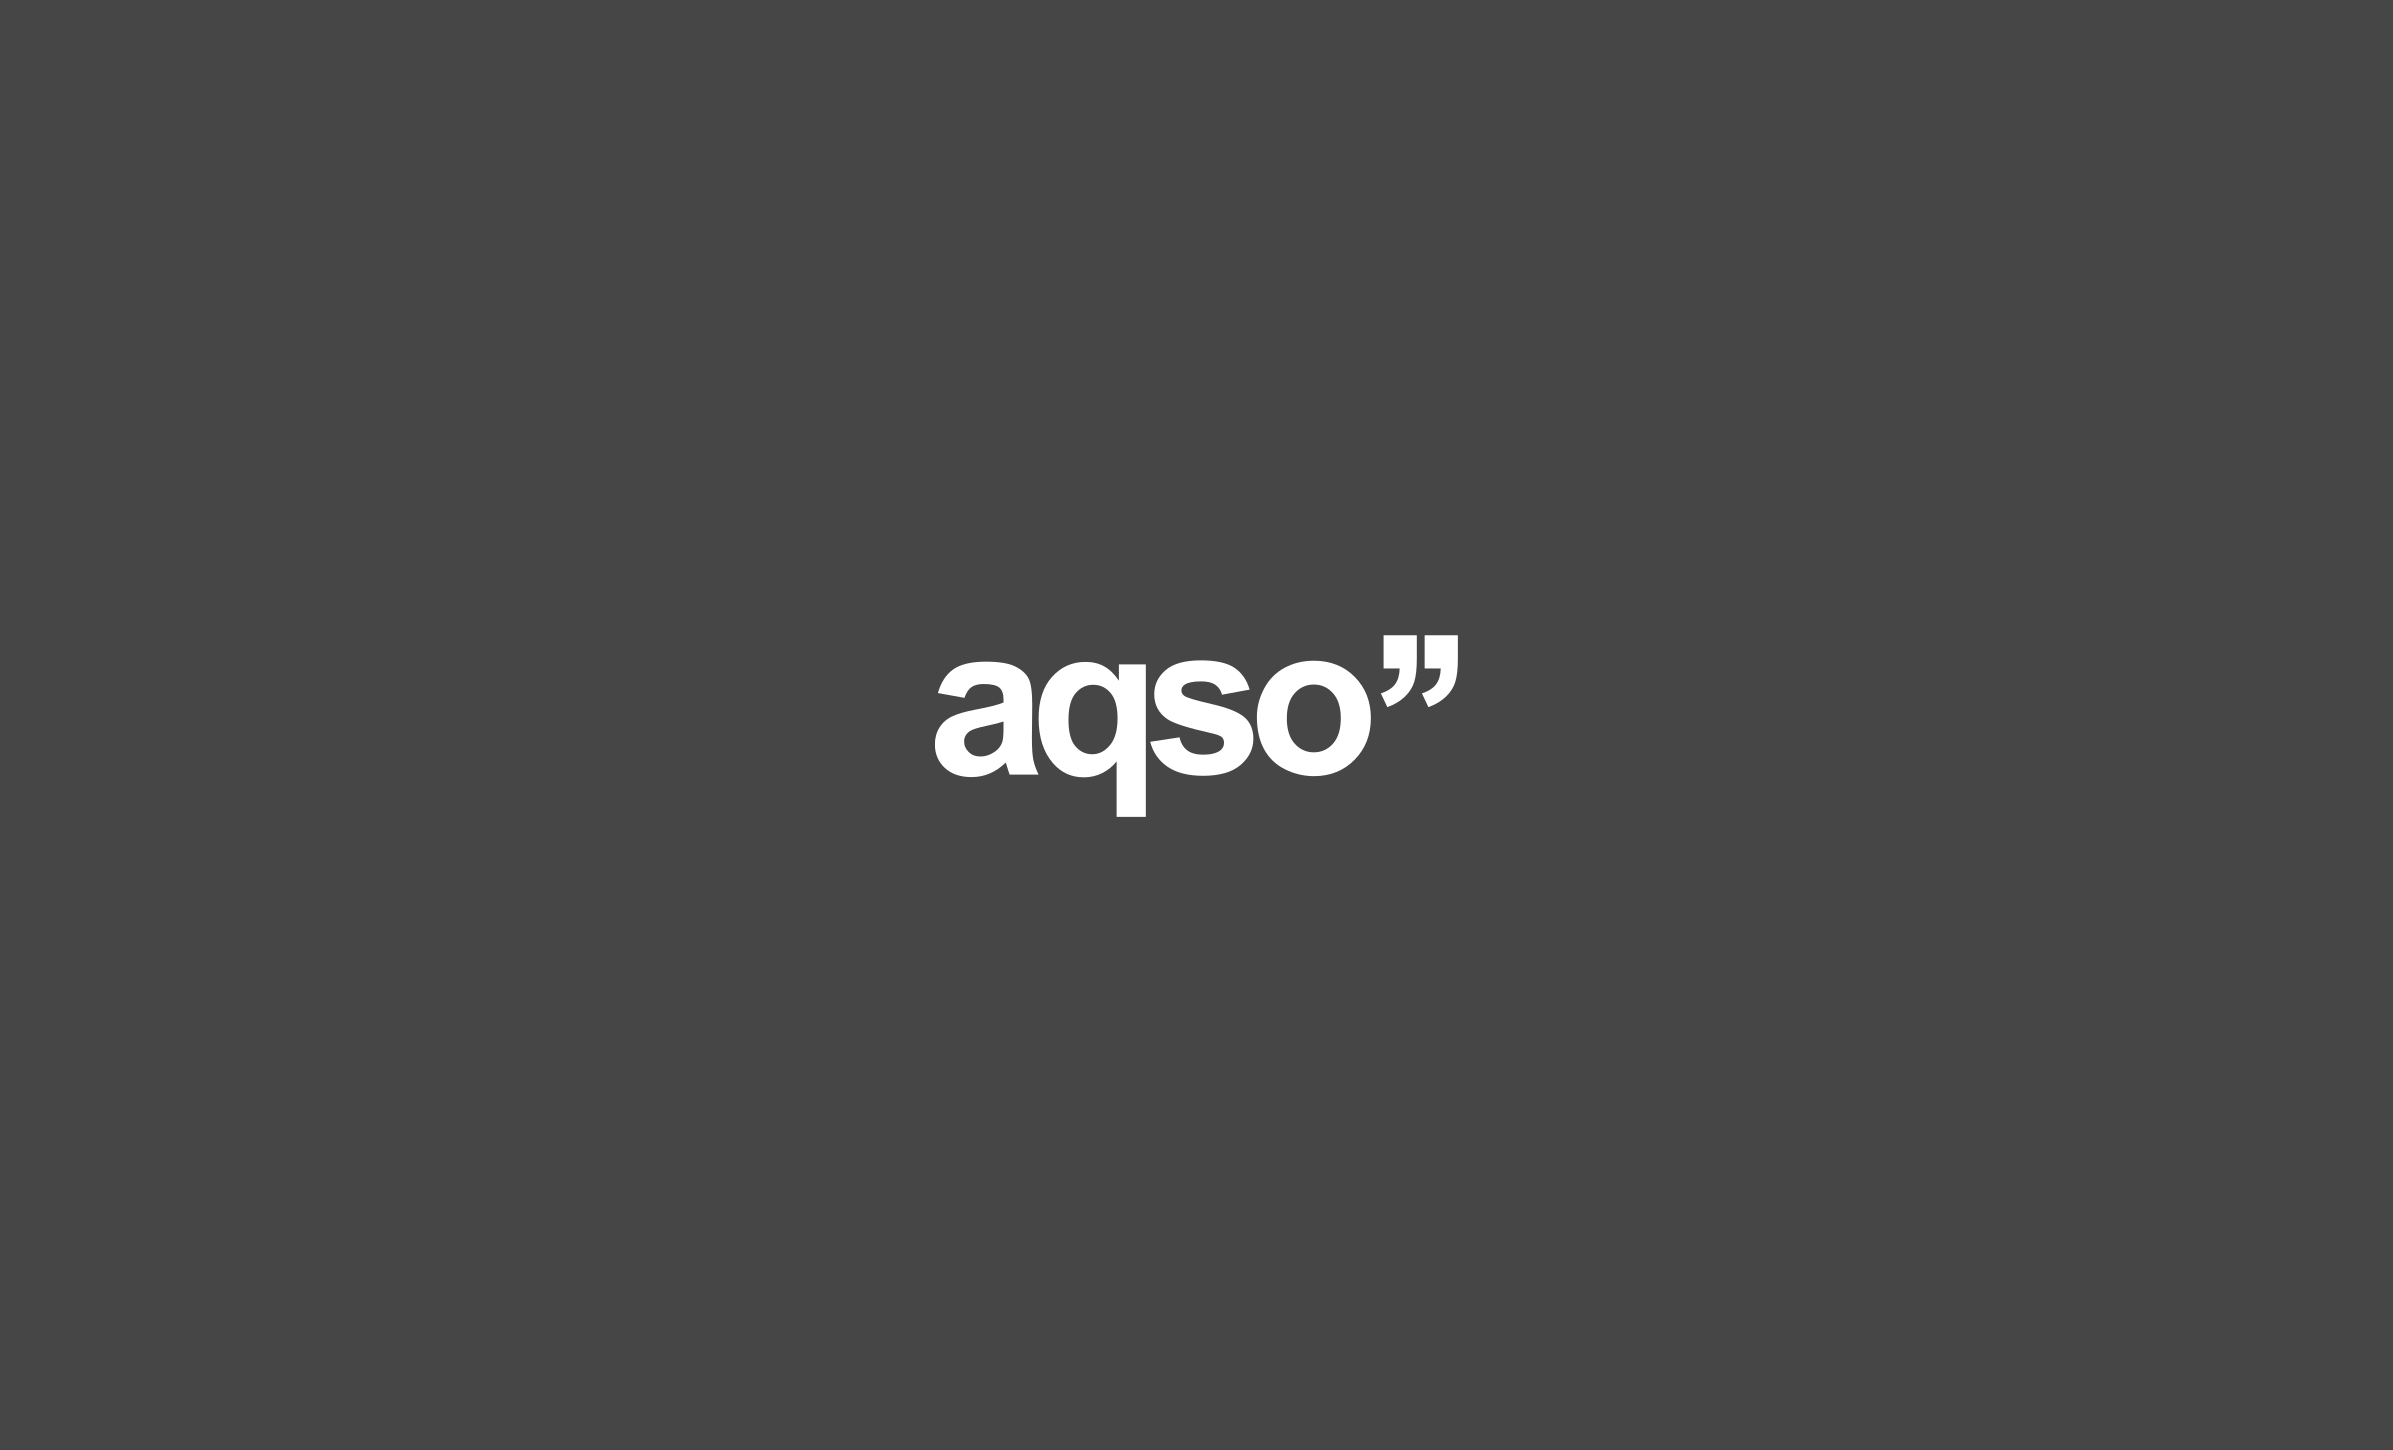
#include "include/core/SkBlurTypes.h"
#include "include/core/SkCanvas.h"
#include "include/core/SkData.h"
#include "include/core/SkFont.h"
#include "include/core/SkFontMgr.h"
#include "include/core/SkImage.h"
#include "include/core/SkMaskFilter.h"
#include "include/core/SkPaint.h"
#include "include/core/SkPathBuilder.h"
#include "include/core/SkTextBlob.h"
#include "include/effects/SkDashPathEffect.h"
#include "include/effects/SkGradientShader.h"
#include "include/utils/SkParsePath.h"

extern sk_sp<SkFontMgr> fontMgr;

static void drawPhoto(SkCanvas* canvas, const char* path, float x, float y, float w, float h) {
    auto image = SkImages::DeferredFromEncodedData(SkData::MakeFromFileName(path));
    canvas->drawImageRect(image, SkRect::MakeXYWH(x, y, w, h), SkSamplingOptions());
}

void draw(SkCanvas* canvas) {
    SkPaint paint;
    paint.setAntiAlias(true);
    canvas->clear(0xFF464646);
    drawPhoto(canvas, "assets/img1.png", 935, 635, 523, 182);
}
